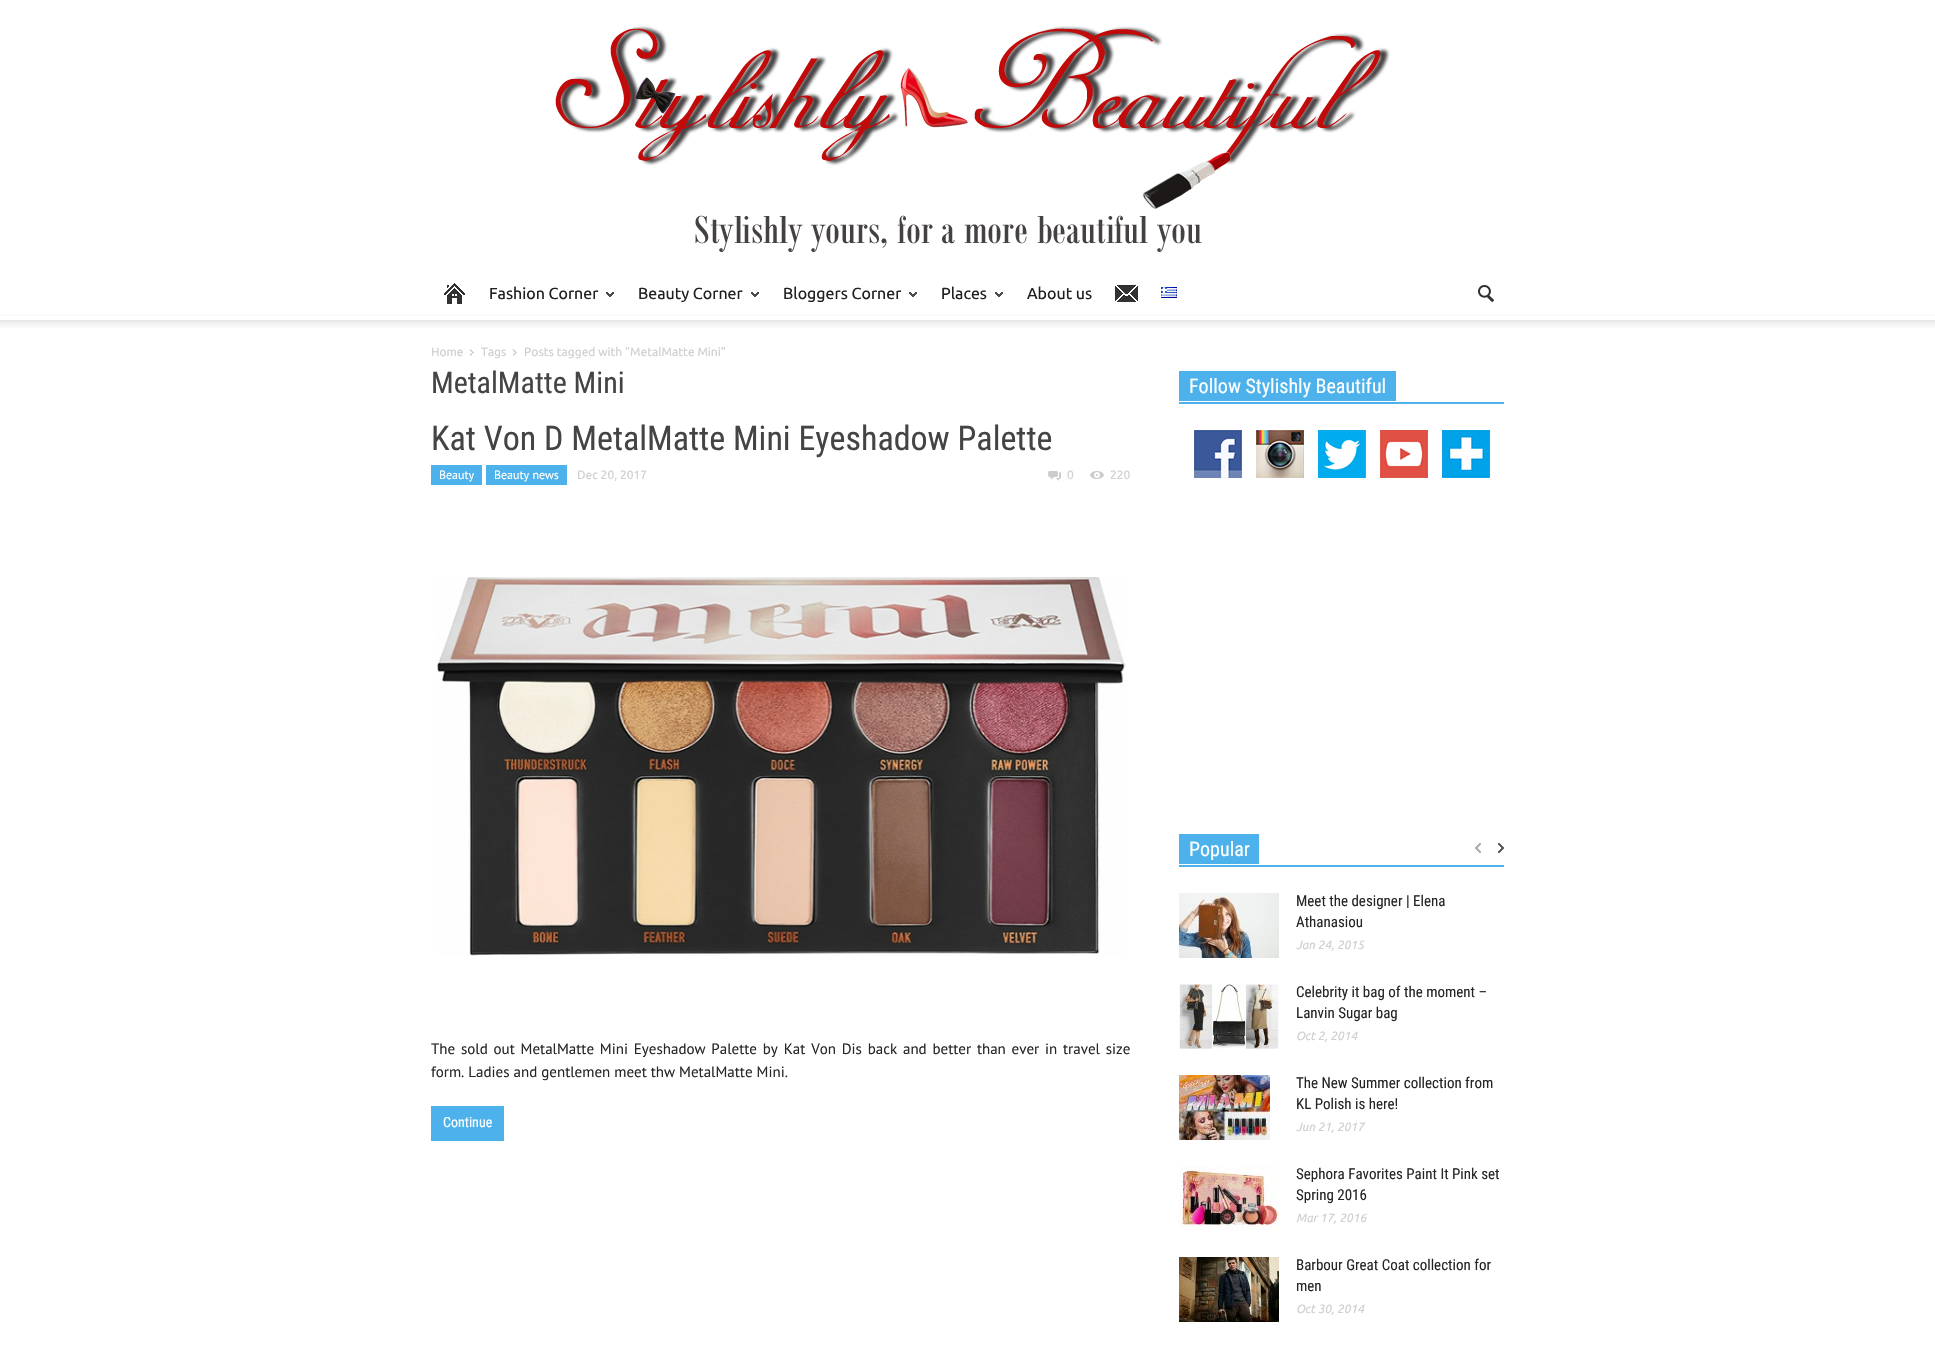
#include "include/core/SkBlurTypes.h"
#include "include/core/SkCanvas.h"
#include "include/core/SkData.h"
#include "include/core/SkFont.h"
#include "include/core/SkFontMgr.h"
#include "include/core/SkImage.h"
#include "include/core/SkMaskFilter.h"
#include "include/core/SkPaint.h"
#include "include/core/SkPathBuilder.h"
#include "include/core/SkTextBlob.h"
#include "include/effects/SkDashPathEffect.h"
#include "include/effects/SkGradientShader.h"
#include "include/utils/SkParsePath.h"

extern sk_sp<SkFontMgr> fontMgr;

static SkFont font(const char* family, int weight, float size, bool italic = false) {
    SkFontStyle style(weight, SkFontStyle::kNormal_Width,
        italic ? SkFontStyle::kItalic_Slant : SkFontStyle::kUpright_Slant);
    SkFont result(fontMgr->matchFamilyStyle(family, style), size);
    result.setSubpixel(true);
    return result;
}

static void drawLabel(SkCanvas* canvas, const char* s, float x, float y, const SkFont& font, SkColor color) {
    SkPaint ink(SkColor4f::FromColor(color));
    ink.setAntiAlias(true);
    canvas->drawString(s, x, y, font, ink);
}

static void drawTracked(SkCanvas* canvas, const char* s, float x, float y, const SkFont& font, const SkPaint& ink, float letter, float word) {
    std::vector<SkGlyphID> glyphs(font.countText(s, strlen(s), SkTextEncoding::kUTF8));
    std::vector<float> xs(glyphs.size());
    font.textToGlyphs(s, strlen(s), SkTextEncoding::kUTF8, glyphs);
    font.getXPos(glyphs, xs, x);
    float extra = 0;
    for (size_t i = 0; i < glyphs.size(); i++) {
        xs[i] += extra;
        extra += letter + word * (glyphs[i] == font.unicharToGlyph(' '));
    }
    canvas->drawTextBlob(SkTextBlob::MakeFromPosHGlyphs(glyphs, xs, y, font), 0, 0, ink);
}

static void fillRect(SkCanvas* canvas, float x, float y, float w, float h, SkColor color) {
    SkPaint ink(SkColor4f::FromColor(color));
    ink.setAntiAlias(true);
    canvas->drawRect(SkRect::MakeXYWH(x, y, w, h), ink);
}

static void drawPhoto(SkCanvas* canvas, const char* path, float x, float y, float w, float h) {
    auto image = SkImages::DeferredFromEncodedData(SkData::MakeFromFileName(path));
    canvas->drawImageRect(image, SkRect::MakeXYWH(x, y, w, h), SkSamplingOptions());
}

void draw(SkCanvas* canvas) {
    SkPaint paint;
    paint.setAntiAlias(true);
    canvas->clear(0xFFFFFFFF);
    drawPhoto(canvas, "assets/img1.png", 555, 26, 835, 226);
    fillRect(canvas, 0, 314, 1935, 2, 0xFFFAFAFA);
    drawPhoto(canvas, "assets/img2.png", 444, 283, 21, 21);
    SkFont font1 = font("Ubuntu", 400, 16);
    drawLabel(canvas, "Fashion Corner", 489, 299, font1, 0xFF202020);
    drawPhoto(canvas, "assets/img3.png", 606, 292, 8, 5);
    drawLabel(canvas, "Beauty Corner", 638, 299, font1, 0xFF202020);
    drawPhoto(canvas, "assets/img3.png", 751, 292, 8, 5);
    drawLabel(canvas, "Bloggers Corner", 783, 299, font1, 0xFF202020);
    drawPhoto(canvas, "assets/img3.png", 909, 292, 8, 5);
    drawLabel(canvas, "Places", 941, 299, font1, 0xFF202020);
    drawPhoto(canvas, "assets/img3.png", 995, 292, 8, 5);
    drawLabel(canvas, "About us", 1027, 299, font1, 0xFF202020);
    drawPhoto(canvas, "assets/img4.png", 1115, 285, 23, 17);
    drawPhoto(canvas, "assets/img5.png", 1161, 287, 16, 11);
    drawPhoto(canvas, "assets/img6.png", 1478, 285, 16, 17);
    drawPhoto(canvas, "assets/img7.png", 0, 320, 1935, 8);
    SkFont font2 = font("Ubuntu", 400, 12);
    drawLabel(canvas, "Home", 431, 356, font2, 0xFFD0D0D0);
    drawPhoto(canvas, "assets/img8.png", 470, 349, 4, 7);
    drawLabel(canvas, "Tags", 481, 356, font2, 0xFFD0D0D0);
    drawPhoto(canvas, "assets/img8.png", 513, 349, 4, 7);
    drawLabel(canvas, "Posts tagged with \"MetalMatte Mini\"", 524, 356, font2, 0xFFD0D0D0);
    SkFont font3 = font("Roboto Condensed", 400, 30);
    drawLabel(canvas, "MetalMatte Mini", 431, 393, font3, 0xFF444444);
    SkFont font4 = font("Roboto Condensed", 400, 34);
    drawLabel(canvas, "Kat Von D MetalMatte Mini Eyeshadow Palette", 431, 450, font4, 0xFF444444);
    fillRect(canvas, 431, 465, 51, 20, 0xFF4DB2EC);
    SkFont font5 = font("PT Sans", 400, 12);
    drawLabel(canvas, "Beauty", 439, 479, font5, 0xFFFFFFFF);
    fillRect(canvas, 486, 465, 81, 20, 0xFF4DB2EC);
    drawLabel(canvas, "Beauty news", 494, 479, font5, 0xFFFFFFFF);
    drawLabel(canvas, "Dec 20, 2017", 577, 479, font2, 0xFFD0D0D0);
    drawPhoto(canvas, "assets/img9.png", 1048, 471, 13, 10);
    drawLabel(canvas, "0", 1067, 479, font2, 0xFFD0D0D0);
    drawPhoto(canvas, "assets/img10.png", 1090, 471, 14, 8);
    drawLabel(canvas, "220", 1110, 479, font2, 0xFFD0D0D0);
    drawPhoto(canvas, "assets/img11.png", 437, 577, 688, 379);
    SkFont font6 = font("PT Sans", 400, 15);
    paint.setColor(0xFF262626);
    drawTracked(canvas, "The sold out MetalMatte Mini Eyeshadow Palette by Kat Von Dis back and better than ever in travel size", 431, 1054, font6, paint, 0, 1.8f);
    drawLabel(canvas, "form. Ladies and gentlemen meet thw MetalMatte Mini.", 431, 1077, font6, 0xFF262626);
    fillRect(canvas, 431, 1106, 73, 35, 0xFF4DB2EC);
    SkFont font7 = font("Roboto Condensed", 400, 14);
    drawLabel(canvas, "Continue", 443, 1127, font7, 0xFFFFFFFF);
    fillRect(canvas, 1179, 402, 325, 2, 0xFF4DB2EC);
    fillRect(canvas, 1179, 371, 217, 30, 0xFF4DB2EC);
    SkFont font8 = font("Roboto Condensed", 400, 20);
    drawLabel(canvas, "Follow Stylishly Beautiful", 1189, 393, font8, 0xFFFFFFFF);
    drawPhoto(canvas, "assets/img12.png", 1194, 430, 48, 48);
    drawPhoto(canvas, "assets/img13.png", 1256, 430, 48, 48);
    drawPhoto(canvas, "assets/img14.png", 1318, 430, 48, 48);
    drawPhoto(canvas, "assets/img15.png", 1380, 430, 48, 48);
    drawPhoto(canvas, "assets/img16.png", 1442, 430, 48, 48);
    fillRect(canvas, 1179, 865, 325, 2, 0xFF4DB2EC);
    fillRect(canvas, 1179, 834, 80, 30, 0xFF4DB2EC);
    drawLabel(canvas, "Popular", 1189, 856, font8, 0xFFFFFFFF);
    drawPhoto(canvas, "assets/img17.png", 1475, 843, 6, 10);
    drawPhoto(canvas, "assets/img18.png", 1498, 843, 6, 10);
    drawPhoto(canvas, "assets/img19.png", 1179, 893, 100, 65);
    SkFont font9 = font("Roboto Condensed", 400, 15);
    drawLabel(canvas, "Meet the designer | Elena", 1296, 906, font9, 0xFF262626);
    drawLabel(canvas, "Athanasiou", 1296, 927, font9, 0xFF262626);
    SkFont font10 = font("Ubuntu", 400, 12, true);
    drawLabel(canvas, "Jan 24, 2015", 1296, 949, font10, 0xFFD0D0D0);
    drawPhoto(canvas, "assets/img20.png", 1179, 984, 100, 65);
    drawLabel(canvas, "Celebrity it bag of the moment –", 1296, 997, font9, 0xFF262626);
    drawLabel(canvas, "Lanvin Sugar bag", 1296, 1018, font9, 0xFF262626);
    drawLabel(canvas, "Oct 2, 2014", 1296, 1040, font10, 0xFFD0D0D0);
    drawPhoto(canvas, "assets/img21.png", 1179, 1075, 91, 65);
    drawLabel(canvas, "The New Summer collection from", 1296, 1088, font9, 0xFF262626);
    drawLabel(canvas, "KL Polish is here!", 1296, 1109, font9, 0xFF262626);
    drawLabel(canvas, "Jun 21, 2017", 1296, 1131, font10, 0xFFD0D0D0);
    drawPhoto(canvas, "assets/img22.png", 1179, 1166, 100, 64);
    drawLabel(canvas, "Sephora Favorites Paint It Pink set", 1296, 1179, font9, 0xFF262626);
    drawLabel(canvas, "Spring 2016", 1296, 1200, font9, 0xFF262626);
    drawLabel(canvas, "Mar 17, 2016", 1296, 1222, font10, 0xFFD0D0D0);
    drawPhoto(canvas, "assets/img23.png", 1179, 1257, 100, 65);
    drawLabel(canvas, "Barbour Great Coat collection for", 1296, 1270, font9, 0xFF262626);
    drawLabel(canvas, "men", 1296, 1291, font9, 0xFF262626);
    drawLabel(canvas, "Oct 30, 2014", 1296, 1313, font10, 0xFFD0D0D0);
}
